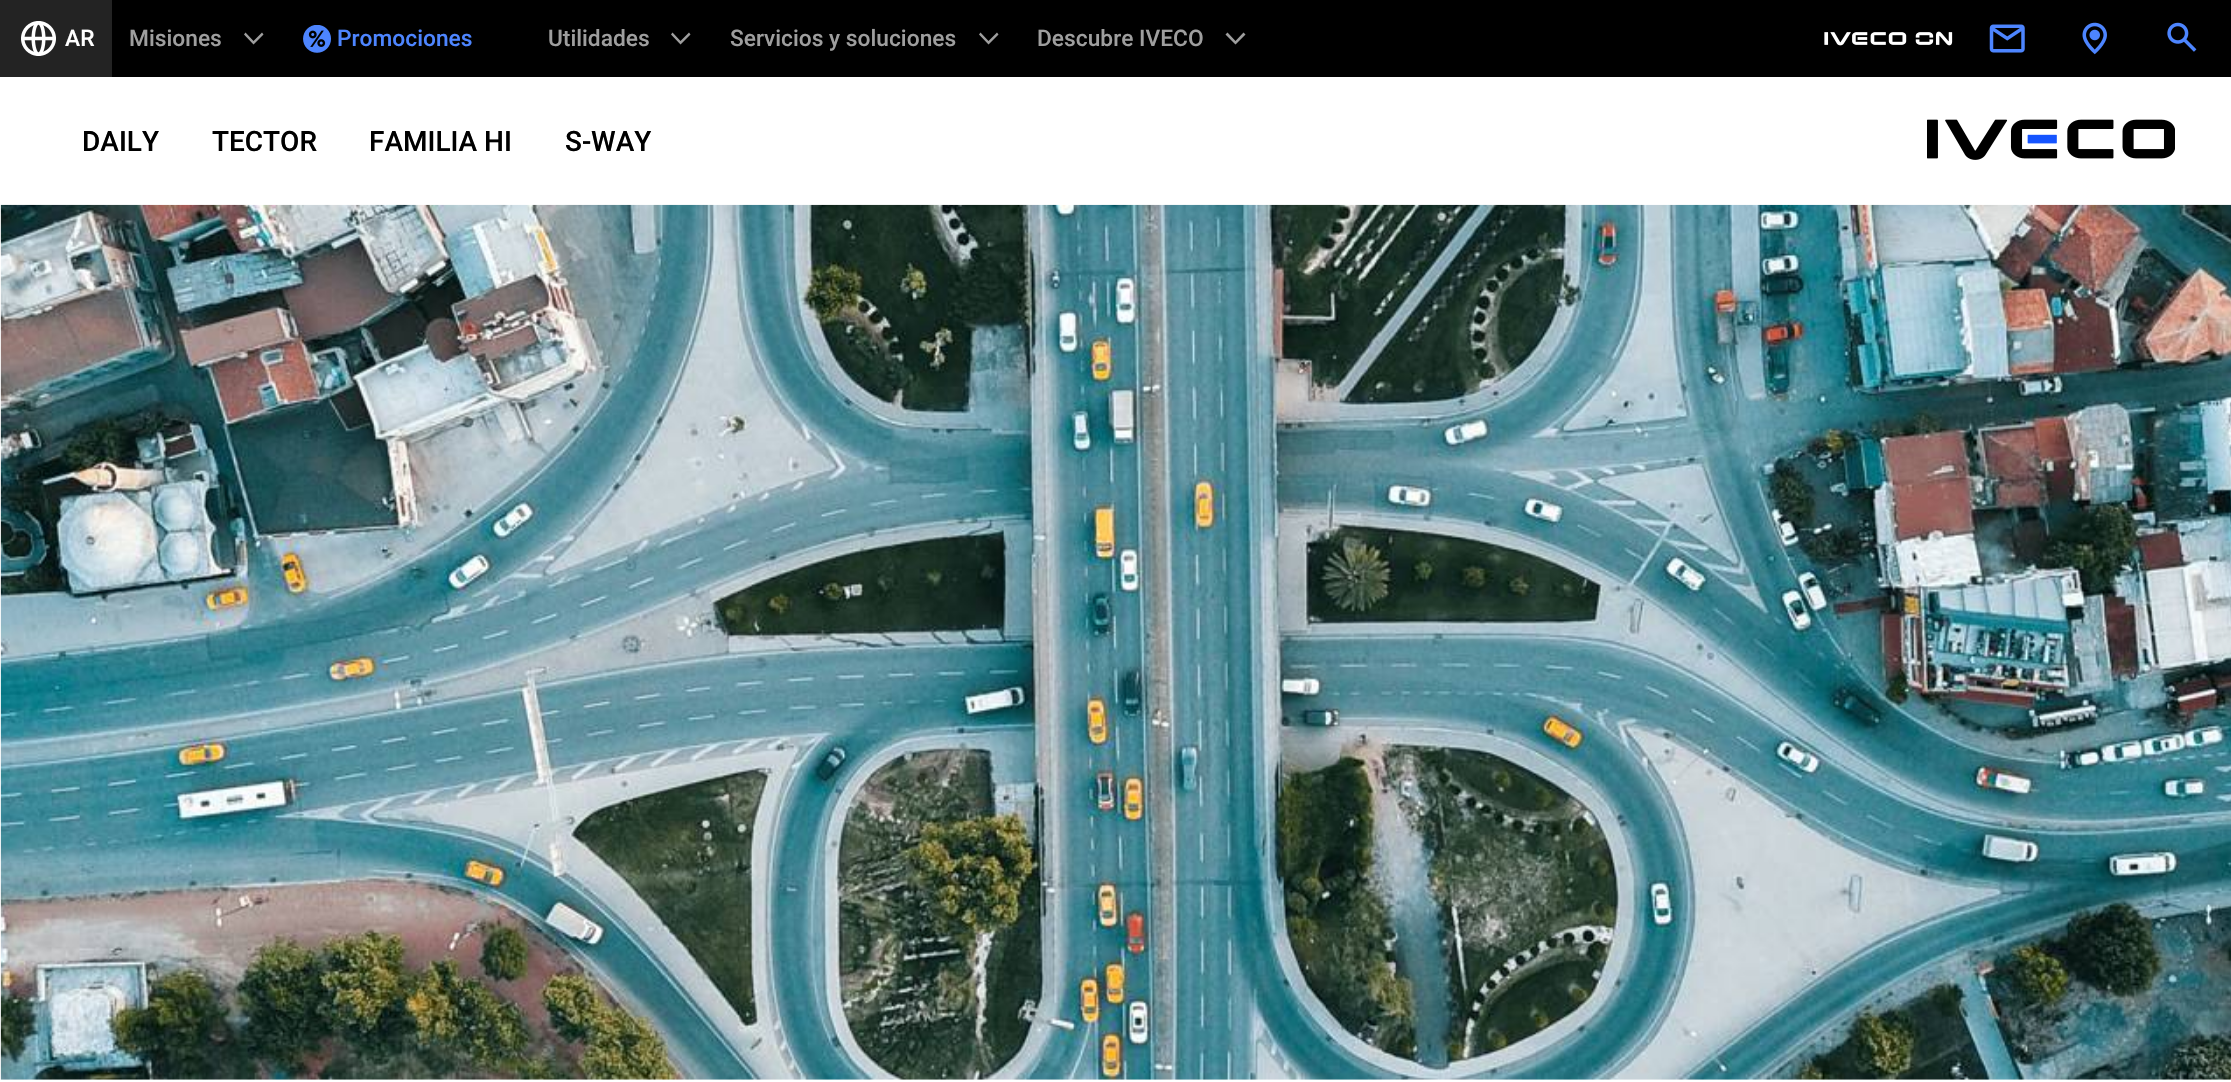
#include "include/core/SkBlurTypes.h"
#include "include/core/SkCanvas.h"
#include "include/core/SkData.h"
#include "include/core/SkFont.h"
#include "include/core/SkFontMgr.h"
#include "include/core/SkImage.h"
#include "include/core/SkMaskFilter.h"
#include "include/core/SkPaint.h"
#include "include/core/SkPathBuilder.h"
#include "include/core/SkTextBlob.h"
#include "include/effects/SkDashPathEffect.h"
#include "include/effects/SkGradientShader.h"
#include "include/utils/SkParsePath.h"

extern sk_sp<SkFontMgr> fontMgr;

static SkFont font(const char* family, int weight, float size, bool italic = false) {
    SkFontStyle style(weight, SkFontStyle::kNormal_Width,
        italic ? SkFontStyle::kItalic_Slant : SkFontStyle::kUpright_Slant);
    SkFont result(fontMgr->matchFamilyStyle(family, style), size);
    result.setSubpixel(true);
    return result;
}

static void drawLabel(SkCanvas* canvas, const char* s, float x, float y, const SkFont& font, SkColor color) {
    SkPaint ink(SkColor4f::FromColor(color));
    ink.setAntiAlias(true);
    canvas->drawString(s, x, y, font, ink);
}

static void fillRect(SkCanvas* canvas, float x, float y, float w, float h, SkColor color) {
    SkPaint ink(SkColor4f::FromColor(color));
    ink.setAntiAlias(true);
    canvas->drawRect(SkRect::MakeXYWH(x, y, w, h), ink);
}

static void drawPhoto(SkCanvas* canvas, const char* path, float x, float y, float w, float h) {
    auto image = SkImages::DeferredFromEncodedData(SkData::MakeFromFileName(path));
    canvas->drawImageRect(image, SkRect::MakeXYWH(x, y, w, h), SkSamplingOptions());
}

static SkPath parsePath(const char* data, bool evenOdd = false) {
    SkPath result = *SkParsePath::FromSVGString(data);
    if (evenOdd) result.setFillType(SkPathFillType::kEvenOdd);
    return result;
}

void draw(SkCanvas* canvas) {
    SkPaint paint;
    paint.setAntiAlias(true);
    canvas->clear(0xFFFFFFFF);
    fillRect(canvas, 112, 0, 2119, 77, 0xFF000000);
    fillRect(canvas, 0, 0, 112, 77, 0xFF232323);
    drawPhoto(canvas, "assets/img1.png", 21, 21, 35, 35);
    SkFont font1 = font("Roboto", 500, 22.75f);
    drawLabel(canvas, "AR", 65, 46, font1, 0xFFFFFFFF);
    drawLabel(canvas, "Misiones", 129, 46, font1, 0xFF9E9E9E);
    paint.setColor(0xFF9E9E9E);
    canvas->drawPath(parsePath("M244 34.5L253.5 44.5L263.5 34.5L262 32.5L253.5 41L245.5 32.5Z"), paint);
    drawPhoto(canvas, "assets/img2.png", 303, 25, 28, 28);
    drawLabel(canvas, "Promociones", 337, 46, font1, 0xFF4D85FF);
    drawLabel(canvas, "Utilidades", 548, 46, font1, 0xFF9E9E9E);
    canvas->drawPath(parsePath("M671 34.5L680.5 44.5L690.5 34.5L689 32.5L680.5 41L672.5 32.5Z"), paint);
    drawLabel(canvas, "Servicios y soluciones", 730, 46, font1, 0xFF9E9E9E);
    canvas->drawPath(parsePath("M979 34.5L988.5 44.5L998.5 34.5L997 32.5L988.5 41L980.5 32.5Z"), paint);
    drawLabel(canvas, "Descubre IVECO", 1037, 46, font1, 0xFF9E9E9E);
    canvas->drawPath(parsePath("M1225.5 34.5L1235.5 44.5L1245.5 34.5L1243.5 32.5L1235.5 41L1227.5 32.5Z"), paint);
    drawPhoto(canvas, "assets/img3.png", 1824, 31, 129, 15);
    drawPhoto(canvas, "assets/img4.png", 1989, 24, 36, 29);
    drawPhoto(canvas, "assets/img5.png", 2082, 22, 25, 33);
    drawPhoto(canvas, "assets/img6.png", 2167, 22, 30, 30);
    SkFont font2 = font("Roboto", 500, 28);
    drawLabel(canvas, "DAILY", 82, 151, font2, 0xFF000000);
    drawLabel(canvas, "TECTOR", 212, 151, font2, 0xFF000000);
    drawLabel(canvas, "FAMILIA HI", 369, 151, font2, 0xFF000000);
    drawLabel(canvas, "S-WAY", 565, 151, font2, 0xFF000000);
    drawPhoto(canvas, "assets/img7.png", 1927, 119, 248, 41);
    drawPhoto(canvas, "assets/img8.png", 0, 204, 2231, 876);
}
